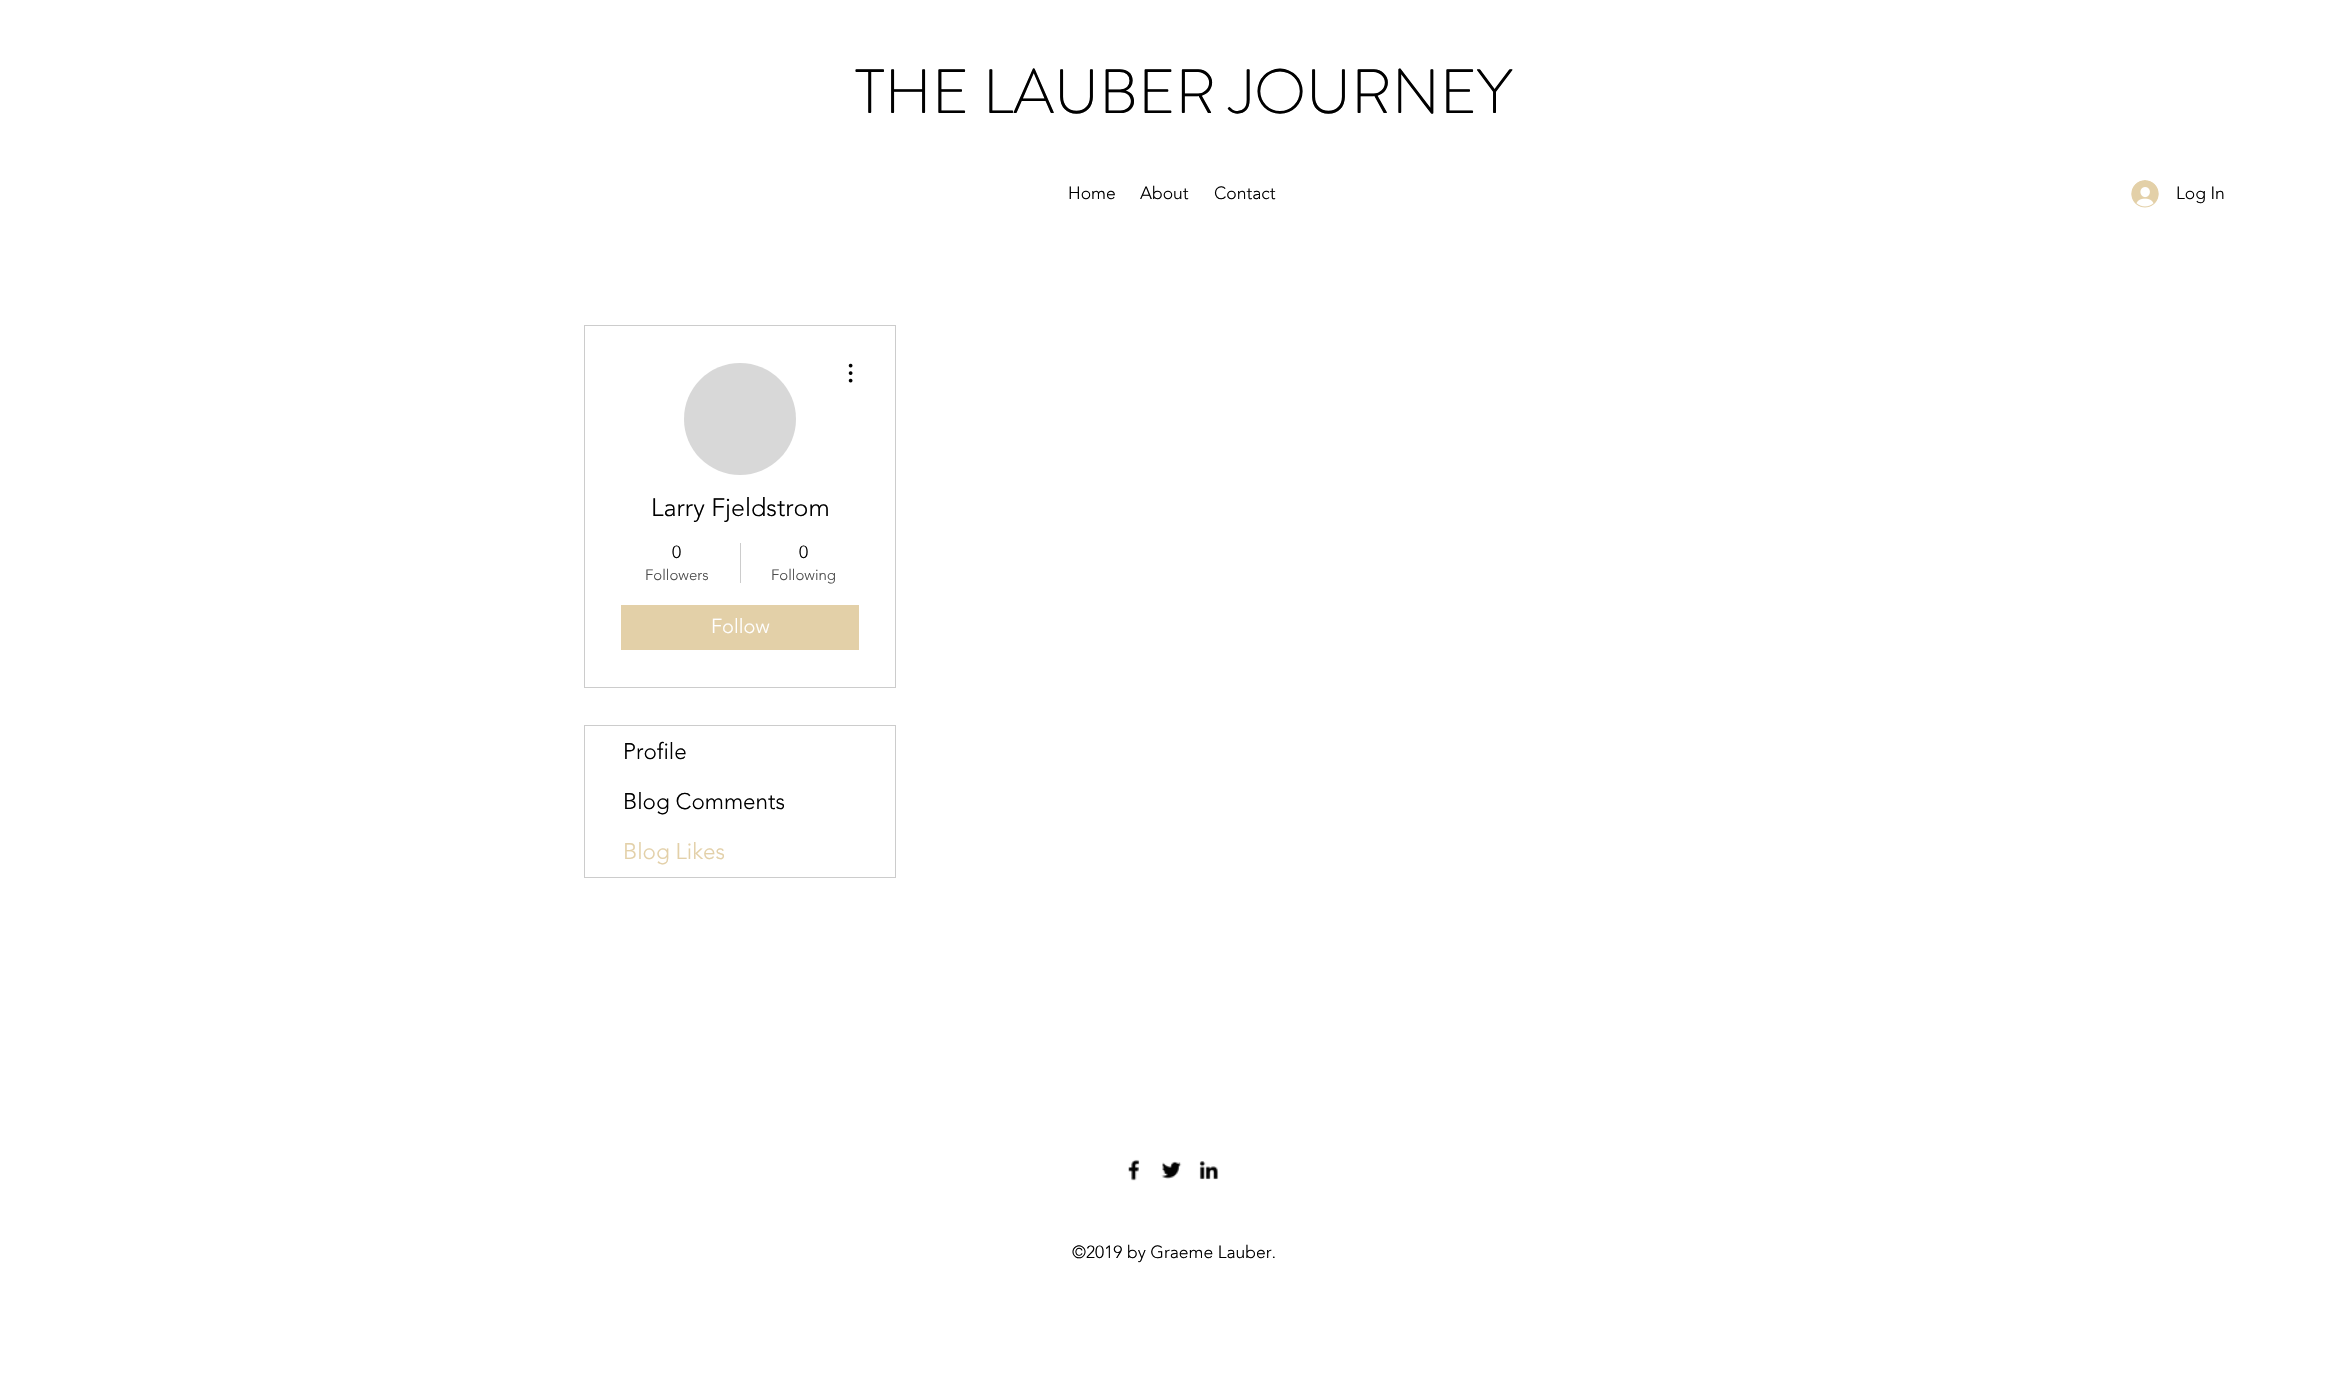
#include "include/core/SkBlurTypes.h"
#include "include/core/SkCanvas.h"
#include "include/core/SkData.h"
#include "include/core/SkFont.h"
#include "include/core/SkFontMgr.h"
#include "include/core/SkImage.h"
#include "include/core/SkMaskFilter.h"
#include "include/core/SkPaint.h"
#include "include/core/SkPathBuilder.h"
#include "include/core/SkTextBlob.h"
#include "include/effects/SkDashPathEffect.h"
#include "include/effects/SkGradientShader.h"
#include "include/utils/SkParsePath.h"

extern sk_sp<SkFontMgr> fontMgr;

static SkFont font(const char* family, int weight, float size, bool italic = false) {
    SkFontStyle style(weight, SkFontStyle::kNormal_Width,
        italic ? SkFontStyle::kItalic_Slant : SkFontStyle::kUpright_Slant);
    SkFont result(fontMgr->matchFamilyStyle(family, style), size);
    result.setSubpixel(true);
    return result;
}

static void drawLabel(SkCanvas* canvas, const char* s, float x, float y, const SkFont& font, SkColor color) {
    SkPaint ink(SkColor4f::FromColor(color));
    ink.setAntiAlias(true);
    canvas->drawString(s, x, y, font, ink);
}

static void fillRect(SkCanvas* canvas, float x, float y, float w, float h, SkColor color) {
    SkPaint ink(SkColor4f::FromColor(color));
    ink.setAntiAlias(true);
    canvas->drawRect(SkRect::MakeXYWH(x, y, w, h), ink);
}

static void drawPhoto(SkCanvas* canvas, const char* path, float x, float y, float w, float h) {
    auto image = SkImages::DeferredFromEncodedData(SkData::MakeFromFileName(path));
    canvas->drawImageRect(image, SkRect::MakeXYWH(x, y, w, h), SkSamplingOptions());
}

void draw(SkCanvas* canvas) {
    SkPaint paint;
    paint.setAntiAlias(true);
    canvas->clear(0xFFFFFFFF);
    SkFont font1 = font("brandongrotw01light", 300, 62.5f);
    drawLabel(canvas, "THE LAUBER JOURNEY", 855, 113, font1, 0xFF000000);
    SkFont font2 = font("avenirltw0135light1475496", 300, 17.5f);
    drawLabel(canvas, "Home", 1068, 199, font2, 0xFF000000);
    drawLabel(canvas, "About", 1140, 199, font2, 0xFF000000);
    drawLabel(canvas, "Contact", 1214, 199, font2, 0xFF000000);
    drawPhoto(canvas, "assets/img1.png", 2131, 180, 28, 28);
    drawLabel(canvas, "Log In", 2176, 199, font2, 0xFF000000);
    paint.setStroke(true);
    paint.setStrokeWidth(1);
    paint.setColor(0xFFCCCCCC);
    canvas->drawRect(SkRect::MakeXYWH(584.5f, 325.5f, 311, 362), paint);
    paint.setStroke(false);
    paint.setColor(0xFFD8D8D8);
    canvas->drawCircle(740, 419, 56, paint);
    drawPhoto(canvas, "assets/img2.png", 848, 363, 5, 20);
    SkFont font3 = font("avenirltw0135light1475496", 300, 25);
    drawLabel(canvas, "Larry Fjeldstrom", 651, 516, font3, 0xFF000000);
    drawLabel(canvas, "0", 672, 558, font2, 0xFF000000);
    SkFont font4 = font("avenirltw0135light1475496", 300, 15);
    drawLabel(canvas, "Followers", 645, 580, font4, 0xFF4D4D4D);
    fillRect(canvas, 740, 543, 1, 40, 0xFFCCCCCC);
    drawLabel(canvas, "0", 799, 558, font2, 0xFF000000);
    drawLabel(canvas, "Following", 771, 580, font4, 0xFF4D4D4D);
    fillRect(canvas, 621, 605, 238, 45, 0xFFE3D0A8);
    SkFont font5 = font("avenirltw0135light1475496", 300, 20);
    drawLabel(canvas, "Follow", 711, 633, font5, 0xFFFFFFFF);
    paint.setStroke(true);
    paint.setColor(0xFFCCCCCC);
    canvas->drawRect(SkRect::MakeXYWH(584.5f, 725.5f, 311, 152), paint);
    SkFont font6 = font("avenirltw0135light1475496", 300, 22.5f);
    drawLabel(canvas, "Profile", 623, 759, font6, 0xFF000000);
    drawLabel(canvas, "Blog Comments", 623, 809, font6, 0xFF000000);
    drawLabel(canvas, "Blog Likes", 623, 859, font6, 0xFFE3D0A8);
    drawPhoto(canvas, "assets/img3.png", 1128, 1159, 12, 22);
    drawPhoto(canvas, "assets/img4.png", 1161, 1161, 21, 18);
    drawPhoto(canvas, "assets/img5.png", 1199, 1161, 20, 19);
    drawLabel(canvas, "©2019 by Graeme Lauber.", 1072, 1258, font2, 0xFF000000);
}
